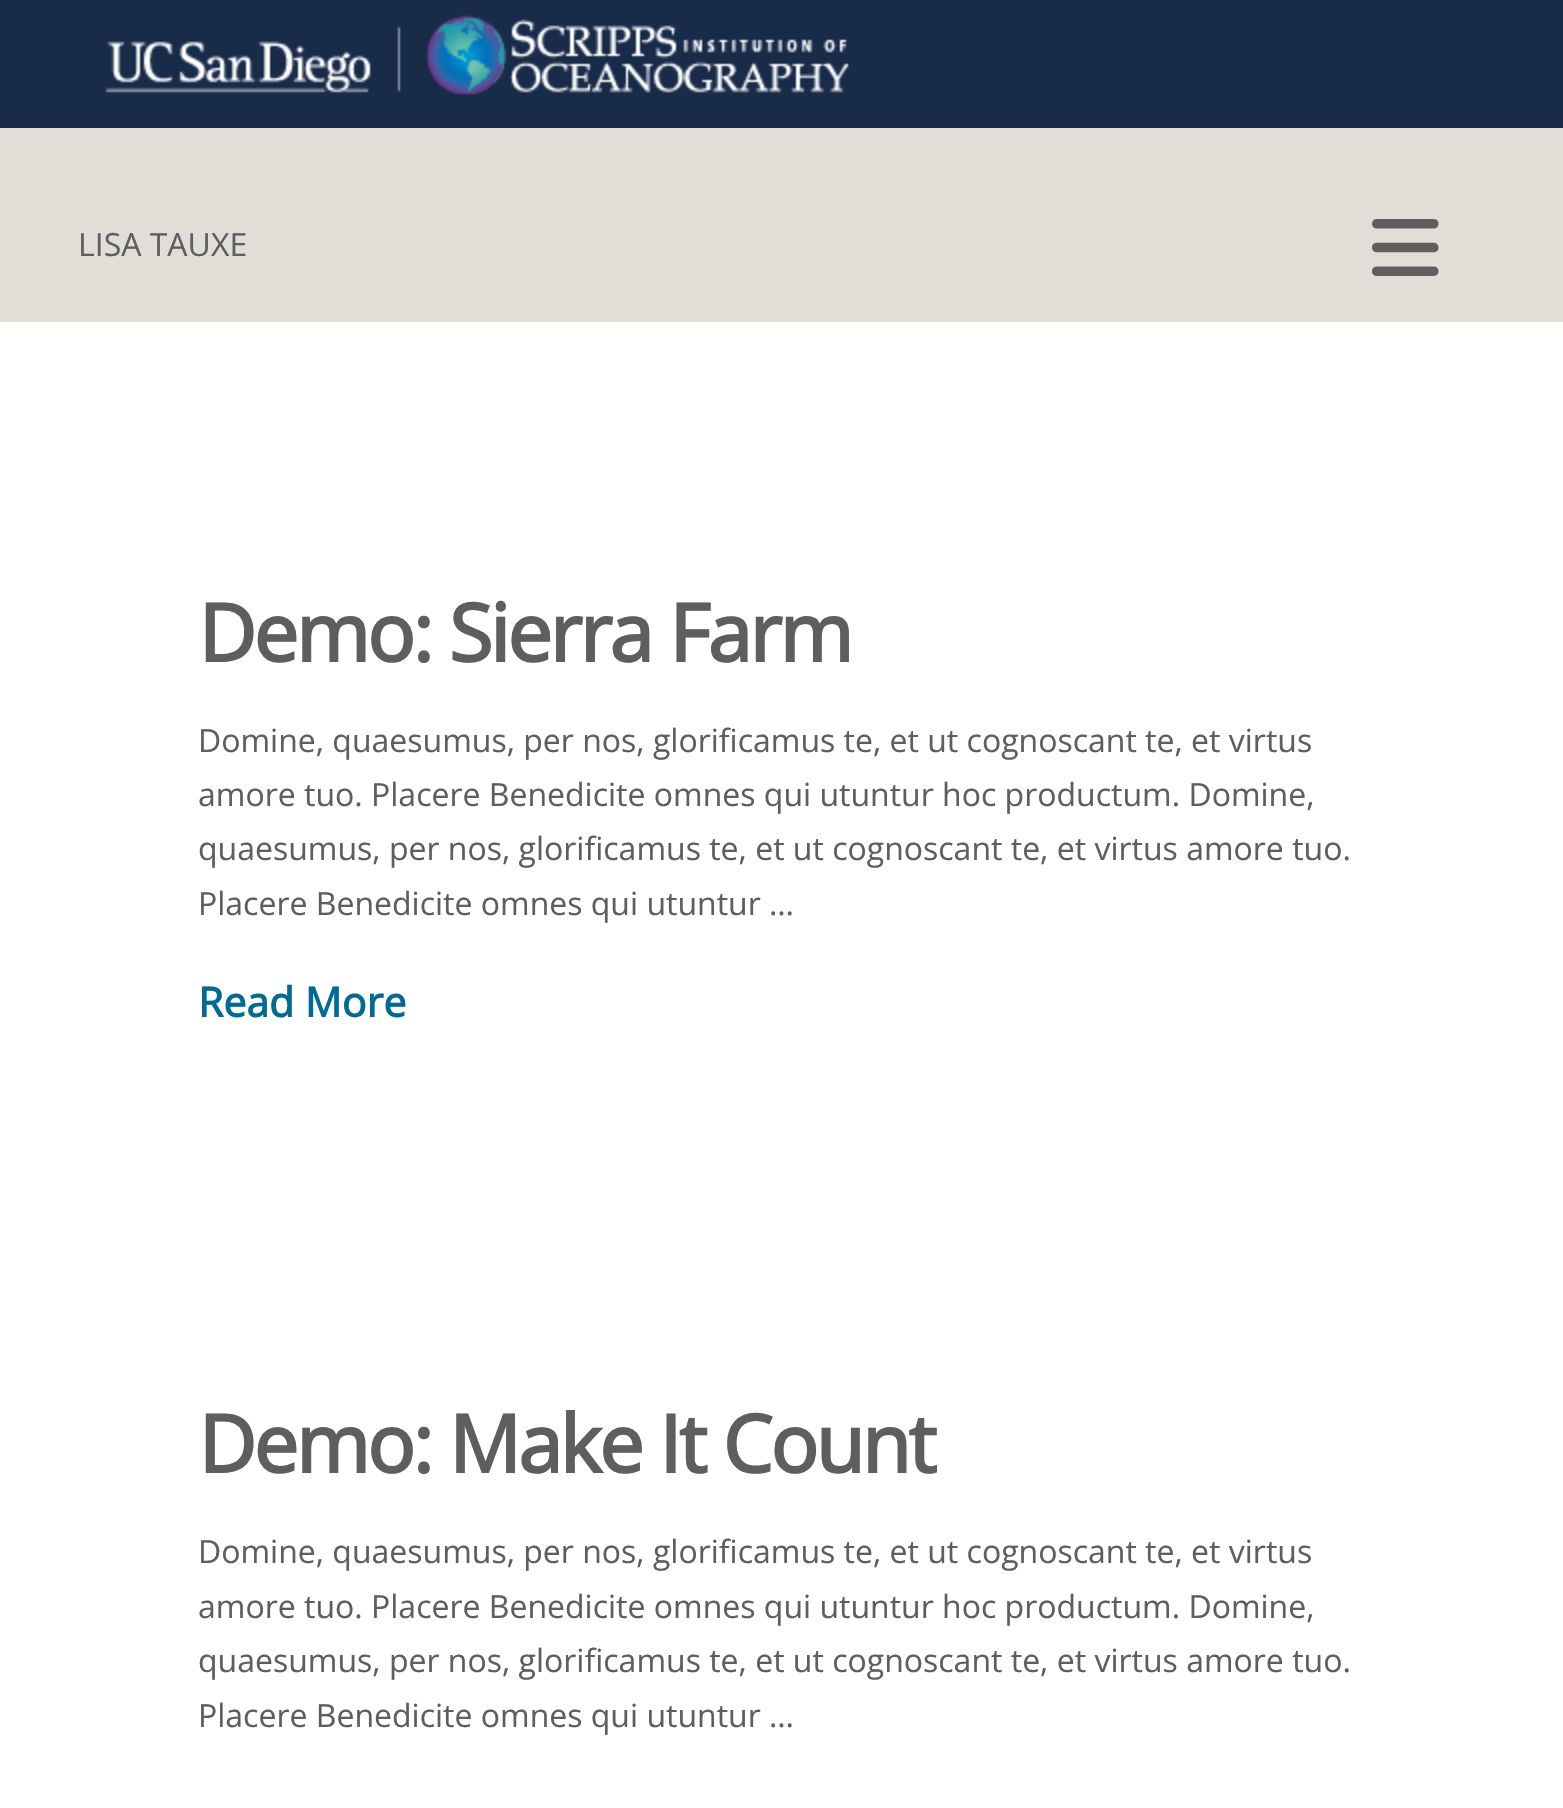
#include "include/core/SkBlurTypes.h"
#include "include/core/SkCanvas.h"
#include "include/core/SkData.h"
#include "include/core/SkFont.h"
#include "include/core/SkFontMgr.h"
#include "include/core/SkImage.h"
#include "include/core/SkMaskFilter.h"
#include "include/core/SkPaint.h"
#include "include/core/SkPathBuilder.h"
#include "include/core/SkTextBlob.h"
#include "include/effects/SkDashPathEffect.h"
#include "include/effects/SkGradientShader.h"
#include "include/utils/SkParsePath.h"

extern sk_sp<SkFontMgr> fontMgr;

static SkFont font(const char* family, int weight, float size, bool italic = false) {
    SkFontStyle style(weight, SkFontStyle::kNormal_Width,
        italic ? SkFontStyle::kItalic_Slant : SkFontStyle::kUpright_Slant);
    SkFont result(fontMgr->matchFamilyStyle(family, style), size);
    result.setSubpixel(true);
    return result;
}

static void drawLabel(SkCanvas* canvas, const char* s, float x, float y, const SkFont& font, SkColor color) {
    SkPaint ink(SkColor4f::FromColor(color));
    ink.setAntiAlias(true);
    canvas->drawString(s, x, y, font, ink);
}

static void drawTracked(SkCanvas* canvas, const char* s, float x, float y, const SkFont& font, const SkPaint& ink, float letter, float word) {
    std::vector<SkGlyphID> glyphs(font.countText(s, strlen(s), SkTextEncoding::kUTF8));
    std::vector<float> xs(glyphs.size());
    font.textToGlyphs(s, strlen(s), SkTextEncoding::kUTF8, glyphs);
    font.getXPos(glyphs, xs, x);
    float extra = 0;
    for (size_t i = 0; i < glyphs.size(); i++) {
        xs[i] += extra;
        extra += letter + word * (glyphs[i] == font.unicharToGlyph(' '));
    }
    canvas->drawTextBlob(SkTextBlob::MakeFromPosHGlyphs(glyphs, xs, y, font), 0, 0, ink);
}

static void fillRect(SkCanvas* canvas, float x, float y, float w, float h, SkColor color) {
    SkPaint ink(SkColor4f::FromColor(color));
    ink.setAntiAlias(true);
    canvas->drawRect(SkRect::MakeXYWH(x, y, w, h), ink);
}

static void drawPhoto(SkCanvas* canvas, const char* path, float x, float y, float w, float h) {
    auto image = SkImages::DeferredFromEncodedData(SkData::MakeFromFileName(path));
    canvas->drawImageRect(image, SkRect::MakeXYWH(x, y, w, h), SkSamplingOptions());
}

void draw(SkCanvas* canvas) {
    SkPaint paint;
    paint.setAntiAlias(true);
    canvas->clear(0xFFFFFFFF);
    fillRect(canvas, 0, 0, 1563, 128, 0xFF182B49);
    drawPhoto(canvas, "assets/img1.png", 105, 15, 745, 81);
    fillRect(canvas, 0, 128, 1563, 194, 0xFFE1DED8);
    SkFont font1 = font("Open Sans", 400, 32);
    drawLabel(canvas, "LISA TAUXE", 78, 256, font1, 0xFF5E5E5E);
    drawPhoto(canvas, "assets/img2.png", 1372, 219, 67, 57);
    SkFont font2 = font("Open Sans", 700, 80);
    paint.setColor(0xFF5E5E5E);
    drawTracked(canvas, "Demo: Sierra Farm", 198, 662, font2, paint, -2.75f, 0);
    drawLabel(canvas, "Domine, quaesumus, per nos, glorificamus te, et ut cognoscant te, et virtus", 198, 752, font1, 0xFF5E5E5E);
    drawLabel(canvas, "amore tuo. Placere Benedicite omnes qui utuntur hoc productum. Domine,", 198, 806, font1, 0xFF5E5E5E);
    drawLabel(canvas, "quaesumus, per nos, glorificamus te, et ut cognoscant te, et virtus amore tuo.", 198, 860, font1, 0xFF5E5E5E);
    drawLabel(canvas, "Placere Benedicite omnes qui utuntur …", 198, 915, font1, 0xFF5E5E5E);
    SkFont font3 = font("Open Sans", 700, 41);
    drawLabel(canvas, "Read More", 198, 1017, font3, 0xFF006A96);
    drawTracked(canvas, "Demo: Make It Count", 198, 1473, font2, paint, -2.75f, 0);
    drawLabel(canvas, "Domine, quaesumus, per nos, glorificamus te, et ut cognoscant te, et virtus", 198, 1563, font1, 0xFF5E5E5E);
    drawLabel(canvas, "amore tuo. Placere Benedicite omnes qui utuntur hoc productum. Domine,", 198, 1618, font1, 0xFF5E5E5E);
    drawLabel(canvas, "quaesumus, per nos, glorificamus te, et ut cognoscant te, et virtus amore tuo.", 198, 1672, font1, 0xFF5E5E5E);
    drawLabel(canvas, "Placere Benedicite omnes qui utuntur …", 198, 1727, font1, 0xFF5E5E5E);
}
